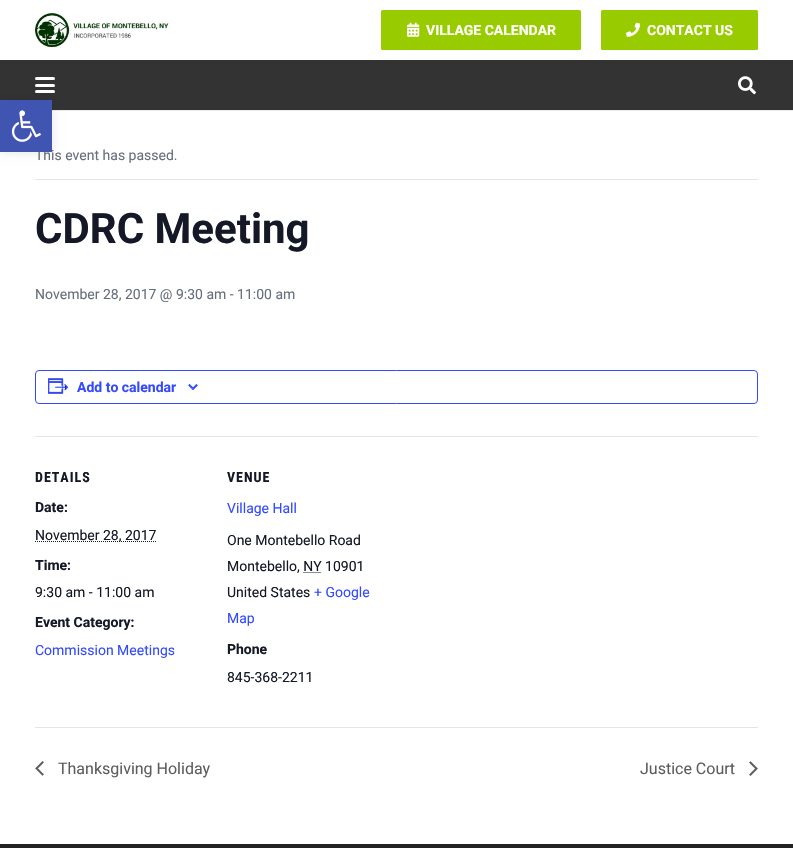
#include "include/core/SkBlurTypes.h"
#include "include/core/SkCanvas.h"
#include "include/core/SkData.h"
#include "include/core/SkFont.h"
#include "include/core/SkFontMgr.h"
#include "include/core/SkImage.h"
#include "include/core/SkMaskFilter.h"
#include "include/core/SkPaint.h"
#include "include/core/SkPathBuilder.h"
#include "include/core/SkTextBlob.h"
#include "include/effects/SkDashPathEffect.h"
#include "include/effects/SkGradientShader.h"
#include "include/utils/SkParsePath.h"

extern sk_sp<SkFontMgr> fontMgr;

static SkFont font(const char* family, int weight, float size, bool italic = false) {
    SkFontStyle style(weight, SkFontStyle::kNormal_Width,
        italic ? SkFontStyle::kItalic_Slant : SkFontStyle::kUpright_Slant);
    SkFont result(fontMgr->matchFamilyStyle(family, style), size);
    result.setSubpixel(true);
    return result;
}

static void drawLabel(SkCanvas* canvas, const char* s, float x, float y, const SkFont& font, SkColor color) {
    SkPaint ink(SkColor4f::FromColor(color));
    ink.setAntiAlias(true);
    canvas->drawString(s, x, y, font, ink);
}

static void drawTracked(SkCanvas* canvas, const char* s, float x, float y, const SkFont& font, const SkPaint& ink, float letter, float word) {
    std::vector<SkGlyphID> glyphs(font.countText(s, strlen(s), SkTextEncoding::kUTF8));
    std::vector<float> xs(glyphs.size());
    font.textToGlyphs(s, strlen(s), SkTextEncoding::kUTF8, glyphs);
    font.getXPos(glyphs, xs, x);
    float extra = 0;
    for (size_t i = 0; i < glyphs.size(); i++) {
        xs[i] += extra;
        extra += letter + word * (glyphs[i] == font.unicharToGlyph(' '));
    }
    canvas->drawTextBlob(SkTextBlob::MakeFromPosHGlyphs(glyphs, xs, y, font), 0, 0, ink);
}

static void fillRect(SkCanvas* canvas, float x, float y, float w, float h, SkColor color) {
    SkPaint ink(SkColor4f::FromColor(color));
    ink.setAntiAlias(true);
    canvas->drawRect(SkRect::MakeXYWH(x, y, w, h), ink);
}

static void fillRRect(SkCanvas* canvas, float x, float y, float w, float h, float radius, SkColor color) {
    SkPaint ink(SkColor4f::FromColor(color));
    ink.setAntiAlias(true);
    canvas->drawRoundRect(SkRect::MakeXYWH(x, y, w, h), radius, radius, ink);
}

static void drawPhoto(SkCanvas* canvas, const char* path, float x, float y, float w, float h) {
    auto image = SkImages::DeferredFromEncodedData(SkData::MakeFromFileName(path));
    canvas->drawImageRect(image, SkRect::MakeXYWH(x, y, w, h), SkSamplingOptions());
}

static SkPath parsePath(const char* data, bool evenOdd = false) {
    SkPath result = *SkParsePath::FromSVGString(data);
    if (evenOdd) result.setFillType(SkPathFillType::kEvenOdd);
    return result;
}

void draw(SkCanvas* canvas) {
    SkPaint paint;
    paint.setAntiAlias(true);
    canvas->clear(0xFFFFFFFF);
    fillRect(canvas, 52, 110, 741, 1, 0xFFEBEBEB);
    fillRect(canvas, 0, 60, 793, 50, 0xFF333333);
    fillRRect(canvas, 35, 84, 20, 3, 1.5f, 0xFFFFFFFF);
    fillRRect(canvas, 35, 90, 20, 3, 1.5f, 0xFFFFFFFF);
    paint.setColor(0x1A000000);
    paint.setMaskFilter(SkMaskFilter::MakeBlur(kNormal_SkBlurStyle, 5));
    canvas->drawRect(SkRect::MakeXYWH(0, 100, 52, 52), paint);
    paint.setMaskFilter(nullptr);
    SkFont font1 = font("Roboto", 400, 14);
    drawLabel(canvas, "This event has passed.", 35, 160, font1, 0xFF676F7C);
    fillRect(canvas, 0, 100, 52, 52, 0xFF4054B2);
    drawPhoto(canvas, "assets/img1.png", 11, 110, 30, 32);
    drawPhoto(canvas, "assets/img2.png", 35, 13, 134, 34);
    fillRRect(canvas, 381, 10, 200, 40, 1.5f, 0xFF99CC00);
    drawPhoto(canvas, "assets/img3.png", 407, 22, 13, 15);
    SkFont font2 = font("Roboto", 700, 14);
    drawLabel(canvas, "VILLAGE CALENDAR", 426, 35, font2, 0xFFFFFFFF);
    fillRRect(canvas, 601, 10, 157, 40, 1.5f, 0xFF99CC00);
    drawPhoto(canvas, "assets/img4.png", 626, 22, 14, 15);
    drawLabel(canvas, "CONTACT US", 647, 35, font2, 0xFFFFFFFF);
    fillRRect(canvas, 35, 77, 20, 3, 1.5f, 0xFFFFFFFF);
    drawPhoto(canvas, "assets/img5.png", 738, 76, 18, 19);
    fillRect(canvas, 35, 179, 723, 1, 0xFFE4E4E4);
    SkFont font3 = font("Roboto", 700, 42);
    drawLabel(canvas, "CDRC Meeting", 35, 243, font3, 0xFF141827);
    drawLabel(canvas, "November 28, 2017 @ 9:30 am - 11:00 am", 35, 299, font1, 0xFF676F7C);
    paint.setStroke(true);
    paint.setStrokeWidth(1);
    paint.setColor(0xFF334AFF);
    canvas->drawRoundRect(SkRect::MakeXYWH(35.5f, 370.5f, 722, 33), 3.5f, 3.5f, paint);
    drawPhoto(canvas, "assets/img6.png", 48, 378, 21, 16);
    drawLabel(canvas, "Add to calendar", 77, 392, font2, 0xFF334AFF);
    drawPhoto(canvas, "assets/img7.png", 188, 384, 10, 6);
    fillRect(canvas, 35, 436, 723, 1, 0xFFE4E4E4);
    SkFont font4 = font("Roboto Condensed", 700, 14);
    paint.setStroke(false);
    paint.setColor(0xFF141827);
    drawTracked(canvas, "DETAILS", 35, 482, font4, paint, 1, 0);
    drawLabel(canvas, "Date:", 35, 512, font2, 0xFF141827);
    paint.setStroke(true);
    paint.setPathEffect(SkDashPathEffect::Make({{1, 1}}, 0));
    canvas->drawPath(parsePath("M35 541.5H156.5"), paint);
    paint.setPathEffect(nullptr);
    drawLabel(canvas, "November 28, 2017", 35, 540, font1, 0xFF141827);
    drawLabel(canvas, "Time:", 35, 570, font2, 0xFF141827);
    drawLabel(canvas, "9:30 am - 11:00 am", 35, 597, font1, 0xFF141827);
    drawLabel(canvas, "Event Category:", 35, 627, font2, 0xFF141827);
    drawLabel(canvas, "Commission Meetings", 35, 655, font1, 0xFF334AFF);
    paint.setStroke(false);
    drawTracked(canvas, "VENUE", 227, 482, font4, paint, 1, 0);
    drawLabel(canvas, "Village Hall", 227, 513, font1, 0xFF334AFF);
    drawLabel(canvas, "One Montebello Road", 227, 545, font1, 0xFF141827);
    drawLabel(canvas, "Montebello, NY 10901", 227, 571, font1, 0xFF141827);
    paint.setStroke(true);
    paint.setPathEffect(SkDashPathEffect::Make({{1, 1}}, 0));
    canvas->drawPath(parsePath("M303.5 572.5H321.5"), paint);
    paint.setPathEffect(nullptr);
    drawLabel(canvas, "United States", 227, 597, font1, 0xFF141827);
    drawLabel(canvas, "+ Google", 314, 597, font1, 0xFF334AFF);
    drawLabel(canvas, "Map", 227, 623, font1, 0xFF334AFF);
    drawLabel(canvas, "Phone", 227, 654, font2, 0xFF141827);
    drawLabel(canvas, "845-368-2211", 227, 682, font1, 0xFF141827);
    fillRect(canvas, 35, 727, 723, 1, 0xFFE4E4E4);
    drawPhoto(canvas, "assets/img8.png", 35, 761, 9, 15);
    SkFont font5 = font("Roboto", 400, 16);
    drawLabel(canvas, "Thanksgiving Holiday", 58, 774, font5, 0xFF5D5D5D);
    drawLabel(canvas, "Justice Court", 640, 774, font5, 0xFF5D5D5D);
    drawPhoto(canvas, "assets/img9.png", 749, 761, 9, 15);
    fillRect(canvas, 0, 844, 793, 4, 0xFF222222);
}
